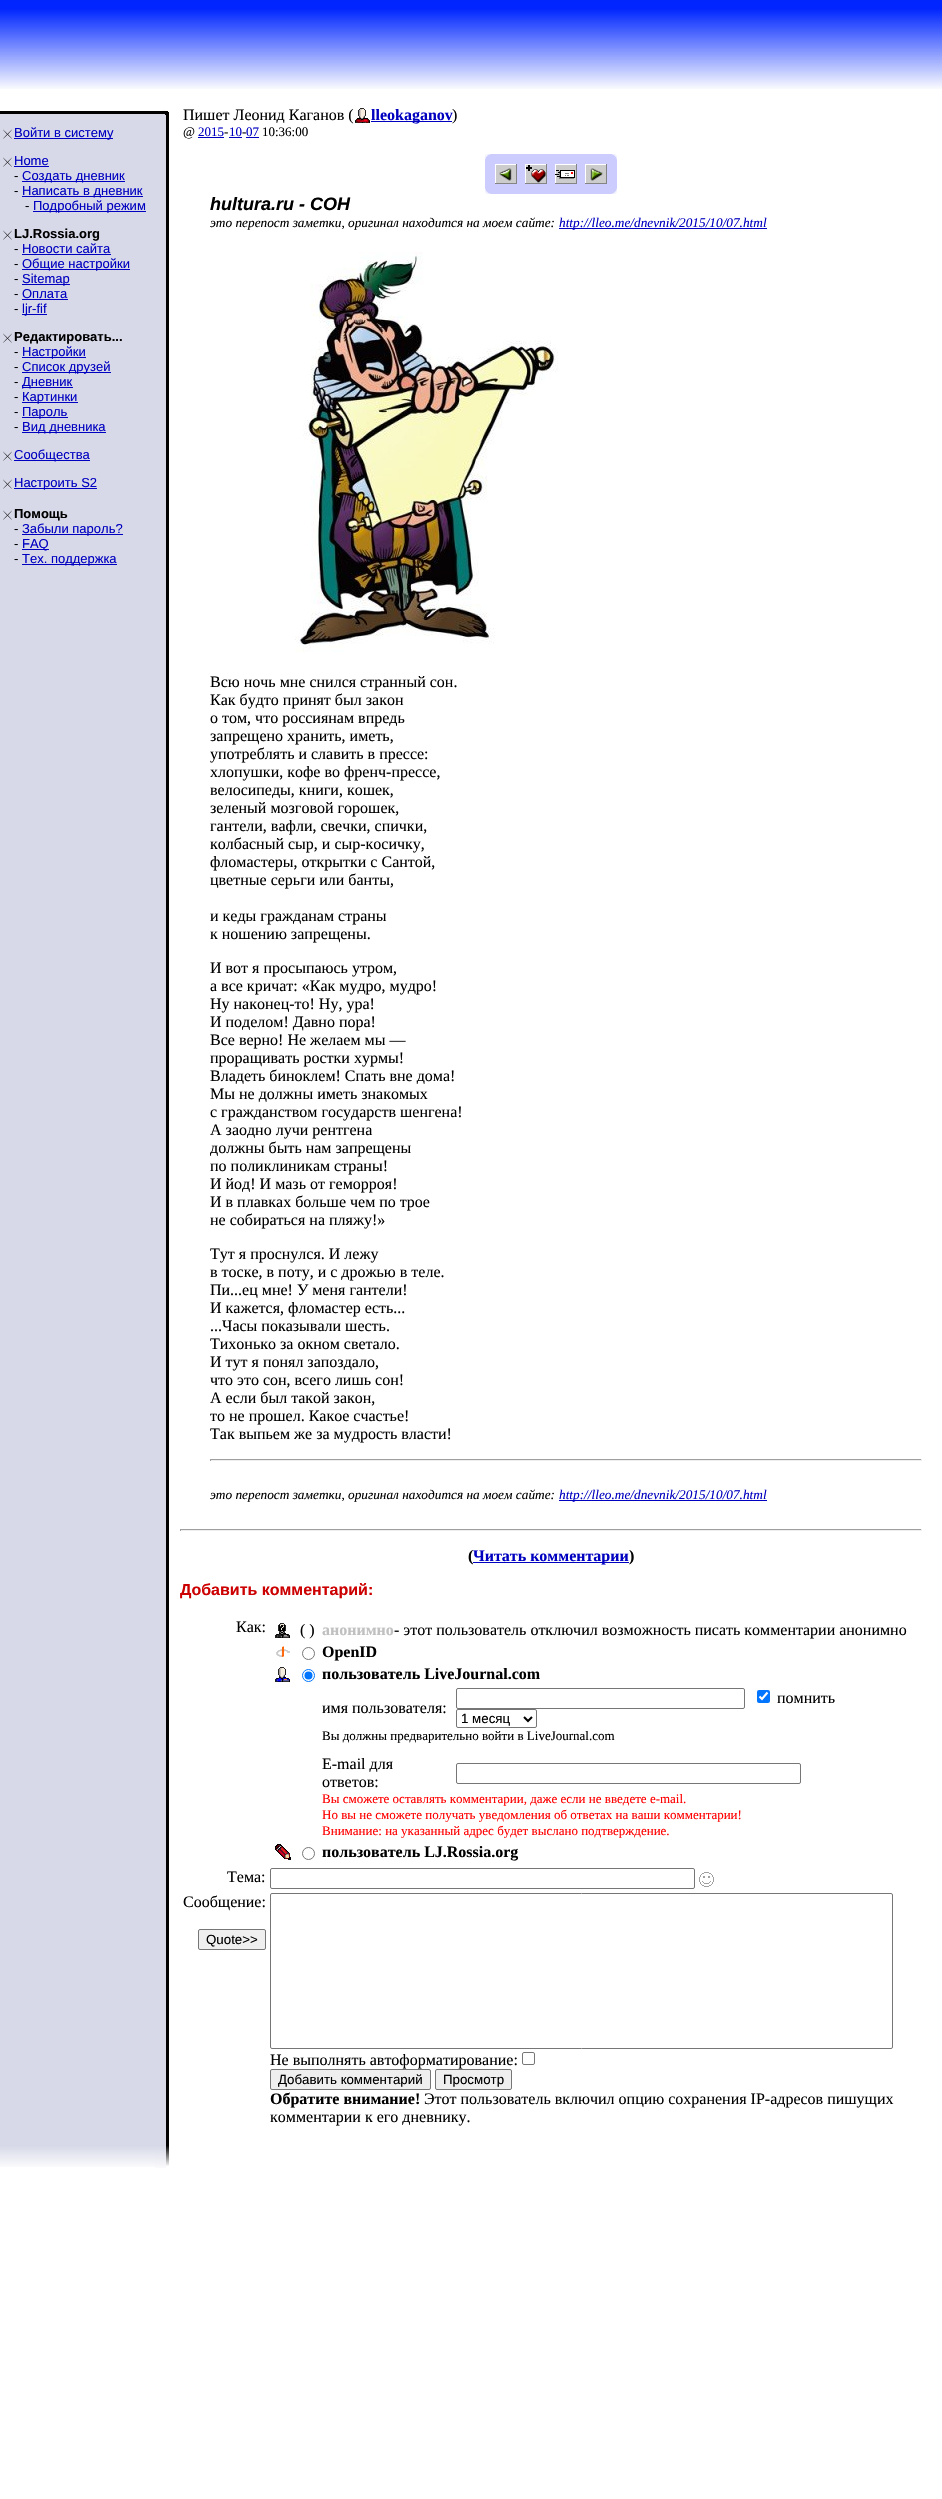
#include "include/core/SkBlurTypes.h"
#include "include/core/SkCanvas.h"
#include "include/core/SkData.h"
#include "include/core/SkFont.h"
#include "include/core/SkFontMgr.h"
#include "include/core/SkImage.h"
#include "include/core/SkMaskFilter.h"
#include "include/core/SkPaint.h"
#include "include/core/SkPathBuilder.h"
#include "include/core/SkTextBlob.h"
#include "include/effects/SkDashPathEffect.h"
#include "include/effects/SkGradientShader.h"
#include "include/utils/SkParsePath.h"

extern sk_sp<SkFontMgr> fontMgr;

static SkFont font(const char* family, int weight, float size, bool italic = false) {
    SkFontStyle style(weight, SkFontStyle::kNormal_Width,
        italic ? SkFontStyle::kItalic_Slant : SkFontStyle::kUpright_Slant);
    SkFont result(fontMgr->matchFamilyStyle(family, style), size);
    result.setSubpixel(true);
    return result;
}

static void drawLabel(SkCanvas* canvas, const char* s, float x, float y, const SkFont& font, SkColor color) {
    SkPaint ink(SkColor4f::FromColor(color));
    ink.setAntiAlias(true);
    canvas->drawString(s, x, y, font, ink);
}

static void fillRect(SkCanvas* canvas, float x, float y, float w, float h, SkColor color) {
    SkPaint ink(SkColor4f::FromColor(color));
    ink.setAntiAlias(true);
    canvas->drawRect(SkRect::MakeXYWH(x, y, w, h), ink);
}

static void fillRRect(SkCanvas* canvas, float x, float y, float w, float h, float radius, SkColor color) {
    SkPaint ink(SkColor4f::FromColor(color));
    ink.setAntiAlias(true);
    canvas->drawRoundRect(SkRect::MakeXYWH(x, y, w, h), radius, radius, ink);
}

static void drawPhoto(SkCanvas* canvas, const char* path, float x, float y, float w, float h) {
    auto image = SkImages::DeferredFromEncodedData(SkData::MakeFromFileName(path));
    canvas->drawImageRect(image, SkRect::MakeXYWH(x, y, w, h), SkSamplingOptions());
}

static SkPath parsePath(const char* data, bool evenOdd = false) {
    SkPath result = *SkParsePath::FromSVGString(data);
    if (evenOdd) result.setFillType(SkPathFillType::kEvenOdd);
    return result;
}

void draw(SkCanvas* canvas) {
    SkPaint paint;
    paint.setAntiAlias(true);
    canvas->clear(0xFFFFFFFF);
    drawPhoto(canvas, "assets/img1.png", 0, 0, 942, 89);
    fillRect(canvas, 0, 114, 155, 2031, 0xFFD7D9E8);
    drawPhoto(canvas, "assets/img2.png", 0, 100, 155, 14);
    drawPhoto(canvas, "assets/img3.png", 3, 129, 9, 10);
    fillRect(canvas, 14, 138, 99, 1, 0xFF0000C0);
    SkFont font1 = font("Liberation Sans", 400, 13);
    drawLabel(canvas, "Войти в систему", 14, 137, font1, 0xFF0000C0);
    drawPhoto(canvas, "assets/img3.png", 3, 157, 9, 10);
    drawLabel(canvas, "Home", 14, 165, font1, 0xFF0000C0);
    fillRect(canvas, 14, 166, 35, 1, 0xFF0000C0);
    drawLabel(canvas, "-", 14, 180, font1, 0xFF000000);
    fillRect(canvas, 22, 181, 103, 1, 0xFF0000C0);
    drawLabel(canvas, "Создать дневник", 22, 180, font1, 0xFF0000C0);
    drawLabel(canvas, "-", 14, 195, font1, 0xFF000000);
    fillRect(canvas, 22, 196, 121, 1, 0xFF0000C0);
    drawLabel(canvas, "Написать в дневник", 22, 195, font1, 0xFF0000C0);
    drawLabel(canvas, "-", 25, 210, font1, 0xFF000000);
    fillRect(canvas, 33, 211, 113, 1, 0xFF0000C0);
    drawLabel(canvas, "Подробный режим", 33, 210, font1, 0xFF0000C0);
    drawPhoto(canvas, "assets/img3.png", 3, 230, 9, 10);
    SkFont font2 = font("Liberation Sans", 700, 13);
    drawLabel(canvas, "LJ.Rossia.org", 14, 238, font2, 0xFF000000);
    drawLabel(canvas, "-", 14, 253, font1, 0xFF000000);
    drawLabel(canvas, "Новости сайта", 22, 253, font1, 0xFF0000C0);
    fillRect(canvas, 22, 254, 89, 1, 0xFF0000C0);
    drawLabel(canvas, "-", 14, 268, font1, 0xFF000000);
    fillRect(canvas, 22, 269, 108, 1, 0xFF0000C0);
    drawLabel(canvas, "Общие настройки", 22, 268, font1, 0xFF0000C0);
    drawLabel(canvas, "-", 14, 283, font1, 0xFF000000);
    fillRect(canvas, 22, 284, 48, 1, 0xFF0000C0);
    drawLabel(canvas, "Sitemap", 22, 283, font1, 0xFF0000C0);
    drawLabel(canvas, "-", 14, 298, font1, 0xFF000000);
    drawLabel(canvas, "Оплата", 22, 298, font1, 0xFF0000C0);
    fillRect(canvas, 22, 299, 46, 1, 0xFF0000C0);
    drawLabel(canvas, "-", 14, 313, font1, 0xFF000000);
    fillRect(canvas, 22, 314, 25, 1, 0xFF0000C0);
    drawLabel(canvas, "ljr-fif", 22, 313, font1, 0xFF0000C0);
    drawPhoto(canvas, "assets/img3.png", 3, 333, 9, 10);
    drawLabel(canvas, "Редактировать...", 14, 341, font2, 0xFF000000);
    drawLabel(canvas, "-", 14, 356, font1, 0xFF000000);
    fillRect(canvas, 22, 357, 64, 1, 0xFF0000C0);
    drawLabel(canvas, "Настройки", 22, 356, font1, 0xFF0000C0);
    drawLabel(canvas, "-", 14, 371, font1, 0xFF000000);
    fillRect(canvas, 22, 372, 89, 1, 0xFF0000C0);
    drawLabel(canvas, "Список друзей", 22, 371, font1, 0xFF0000C0);
    drawLabel(canvas, "-", 14, 386, font1, 0xFF000000);
    fillRect(canvas, 22, 387, 51, 1, 0xFF0000C0);
    drawLabel(canvas, "Дневник", 22, 386, font1, 0xFF0000C0);
    drawLabel(canvas, "-", 14, 401, font1, 0xFF000000);
    fillRect(canvas, 22, 402, 56, 1, 0xFF0000C0);
    drawLabel(canvas, "Картинки", 22, 401, font1, 0xFF0000C0);
    drawLabel(canvas, "-", 14, 416, font1, 0xFF000000);
    fillRect(canvas, 22, 417, 46, 1, 0xFF0000C0);
    drawLabel(canvas, "Пароль", 22, 416, font1, 0xFF0000C0);
    drawLabel(canvas, "-", 14, 431, font1, 0xFF000000);
    fillRect(canvas, 22, 432, 84, 1, 0xFF0000C0);
    drawLabel(canvas, "Вид дневника", 22, 431, font1, 0xFF0000C0);
    drawPhoto(canvas, "assets/img3.png", 3, 451, 9, 10);
    fillRect(canvas, 14, 460, 76, 1, 0xFF0000C0);
    drawLabel(canvas, "Сообщества", 14, 459, font1, 0xFF0000C0);
    drawPhoto(canvas, "assets/img3.png", 3, 479, 9, 10);
    fillRect(canvas, 14, 488, 83, 1, 0xFF0000C0);
    drawLabel(canvas, "Настроить S2", 14, 487, font1, 0xFF0000C0);
    drawPhoto(canvas, "assets/img3.png", 3, 510, 9, 10);
    drawLabel(canvas, "Помощь", 14, 518, font2, 0xFF000000);
    drawLabel(canvas, "-", 14, 533, font1, 0xFF000000);
    fillRect(canvas, 22, 534, 101, 1, 0xFF0000C0);
    drawLabel(canvas, "Забыли пароль?", 22, 533, font1, 0xFF0000C0);
    drawLabel(canvas, "-", 14, 548, font1, 0xFF000000);
    fillRect(canvas, 22, 549, 27, 1, 0xFF0000C0);
    drawLabel(canvas, "FAQ", 22, 548, font1, 0xFF0000C0);
    drawLabel(canvas, "-", 14, 563, font1, 0xFF000000);
    fillRect(canvas, 22, 564, 95, 1, 0xFF0000C0);
    drawLabel(canvas, "Тех. поддержка", 22, 563, font1, 0xFF0000C0);
    drawPhoto(canvas, "assets/img4.png", 155, 115, 14, 2030);
    drawPhoto(canvas, "assets/img5.png", 155, 100, 14, 15);
    SkFont font3 = font("Liberation Serif", 400, 16);
    drawLabel(canvas, "Пишет Леонид Каганов (", 183, 120, font3, 0xFF000000);
    drawPhoto(canvas, "assets/img6.png", 355, 108, 15, 15);
    fillRect(canvas, 371, 121, 81, 1, 0xFF0000C0);
    SkFont font4 = font("Liberation Serif", 700, 16);
    drawLabel(canvas, "lleokaganov", 371, 120, font4, 0xFF0000C0);
    drawLabel(canvas, ")", 452, 120, font3, 0xFF000000);
    SkFont font5 = font("Liberation Serif", 400, 13);
    drawLabel(canvas, "@", 183, 136, font5, 0xFF000000);
    drawLabel(canvas, "2015", 198, 136, font5, 0xFF0000C0);
    drawLabel(canvas, "-", 224, 136, font5, 0xFF000000);
    fillRect(canvas, 198, 137, 26, 1, 0xFF0000C0);
    fillRect(canvas, 229, 137, 13, 1, 0xFF0000C0);
    drawLabel(canvas, "10", 229, 136, font5, 0xFF0000C0);
    drawLabel(canvas, "-", 242, 136, font5, 0xFF000000);
    fillRect(canvas, 246, 137, 13, 1, 0xFF0000C0);
    drawLabel(canvas, "07", 246, 136, font5, 0xFF0000C0);
    drawLabel(canvas, "10:36:00", 262, 136, font5, 0xFF000000);
    fillRect(canvas, 485, 154, 132, 40, 0xFFCCCCFF);
    drawPhoto(canvas, "assets/img7.png", 485, 154, 6, 6);
    drawPhoto(canvas, "assets/img8.png", 611, 154, 6, 6);
    drawPhoto(canvas, "assets/img9.png", 495, 164, 22, 20);
    drawPhoto(canvas, "assets/img10.png", 525, 164, 22, 20);
    drawPhoto(canvas, "assets/img11.png", 555, 164, 22, 20);
    drawPhoto(canvas, "assets/img12.png", 585, 164, 22, 20);
    drawPhoto(canvas, "assets/img13.png", 485, 188, 6, 6);
    drawPhoto(canvas, "assets/img14.png", 611, 188, 6, 6);
    SkFont font6 = font("Liberation Sans", 700, 18, true);
    drawLabel(canvas, "hultura.ru - СОН", 210, 210, font6, 0xFF000000);
    SkFont font7 = font("Liberation Serif", 400, 13.3f, true);
    drawLabel(canvas, "это перепост заметки, оригинал находится на моем сайте:", 210, 227, font7, 0xFF000000);
    fillRect(canvas, 559, 228, 208, 1, 0xFF0000C0);
    drawLabel(canvas, "http://lleo.me/dnevnik/2015/10/07.html", 559, 227, font7, 0xFF0000C0);
    drawPhoto(canvas, "assets/img15.png", 295, 252, 263, 400);
    drawLabel(canvas, "Всю ночь мне снился странный сон.", 210, 687, font3, 0xFF000000);
    drawLabel(canvas, "Как будто принят был закон", 210, 705, font3, 0xFF000000);
    drawLabel(canvas, "о том, что россиянам впредь", 210, 723, font3, 0xFF000000);
    drawLabel(canvas, "запрещено хранить, иметь,", 210, 741, font3, 0xFF000000);
    drawLabel(canvas, "употреблять и славить в прессе:", 210, 759, font3, 0xFF000000);
    drawLabel(canvas, "хлопушки, кофе во френч-прессе,", 210, 777, font3, 0xFF000000);
    drawLabel(canvas, "велосипеды, книги, кошек,", 210, 795, font3, 0xFF000000);
    drawLabel(canvas, "зеленый мозговой горошек,", 210, 813, font3, 0xFF000000);
    drawLabel(canvas, "гантели, вафли, свечки, спички,", 210, 831, font3, 0xFF000000);
    drawLabel(canvas, "колбасный сыр, и сыр-косичку,", 210, 849, font3, 0xFF000000);
    drawLabel(canvas, "фломастеры, открытки с Сантой,", 210, 867, font3, 0xFF000000);
    drawLabel(canvas, "цветные серьги или банты,", 210, 885, font3, 0xFF000000);
    drawLabel(canvas, "и кеды гражданам страны", 210, 921, font3, 0xFF000000);
    drawLabel(canvas, "к ношению запрещены.", 210, 939, font3, 0xFF000000);
    drawLabel(canvas, "И вот я просыпаюсь утром,", 210, 973, font3, 0xFF000000);
    drawLabel(canvas, "а все кричат: «Как мудро, мудро!", 210, 991, font3, 0xFF000000);
    drawLabel(canvas, "Ну наконец-то! Ну, ура!", 210, 1009, font3, 0xFF000000);
    drawLabel(canvas, "И поделом! Давно пора!", 210, 1027, font3, 0xFF000000);
    drawLabel(canvas, "Все верно! Не желаем мы —", 210, 1045, font3, 0xFF000000);
    drawLabel(canvas, "проращивать ростки хурмы!", 210, 1063, font3, 0xFF000000);
    drawLabel(canvas, "Владеть биноклем! Спать вне дома!", 210, 1081, font3, 0xFF000000);
    drawLabel(canvas, "Мы не должны иметь знакомых", 210, 1099, font3, 0xFF000000);
    drawLabel(canvas, "с гражданством государств шенгена!", 210, 1117, font3, 0xFF000000);
    drawLabel(canvas, "А заодно лучи рентгена", 210, 1135, font3, 0xFF000000);
    drawLabel(canvas, "должны быть нам запрещены", 210, 1153, font3, 0xFF000000);
    drawLabel(canvas, "по поликлиникам страны!", 210, 1171, font3, 0xFF000000);
    drawLabel(canvas, "И йод! И мазь от геморроя!", 210, 1189, font3, 0xFF000000);
    drawLabel(canvas, "И в плавках больше чем по трое", 210, 1207, font3, 0xFF000000);
    drawLabel(canvas, "не собираться на пляжу!»", 210, 1225, font3, 0xFF000000);
    drawLabel(canvas, "Тут я проснулся. И лежу", 210, 1259, font3, 0xFF000000);
    drawLabel(canvas, "в тоске, в поту, и с дрожью в теле.", 210, 1277, font3, 0xFF000000);
    drawLabel(canvas, "Пи...ец мне! У меня гантели!", 210, 1295, font3, 0xFF000000);
    drawLabel(canvas, "И кажется, фломастер есть...", 210, 1313, font3, 0xFF000000);
    drawLabel(canvas, "...Часы показывали шесть.", 210, 1331, font3, 0xFF000000);
    drawLabel(canvas, "Тихонько за окном светало.", 210, 1349, font3, 0xFF000000);
    drawLabel(canvas, "И тут я понял запоздало,", 210, 1367, font3, 0xFF000000);
    drawLabel(canvas, "что это сон, всего лишь сон!", 210, 1385, font3, 0xFF000000);
    drawLabel(canvas, "А если был такой закон,", 210, 1403, font3, 0xFF000000);
    drawLabel(canvas, "то не прошел. Какое счастье!", 210, 1421, font3, 0xFF000000);
    drawLabel(canvas, "Так выпьем же за мудрость власти!", 210, 1439, font3, 0xFF000000);
    fillRect(canvas, 210, 1459, 712, 1, 0xFF9F9F9F);
    fillRect(canvas, 921, 1459, 1, 2, 0xFFEEEEEE);
    fillRect(canvas, 210, 1460, 712, 1, 0xFFEEEEEE);
    fillRect(canvas, 210, 1459, 1, 2, 0xFF9F9F9F);
    drawLabel(canvas, "это перепост заметки, оригинал находится на моем сайте:", 210, 1499, font7, 0xFF000000);
    fillRect(canvas, 559, 1500, 208, 1, 0xFF0000C0);
    drawLabel(canvas, "http://lleo.me/dnevnik/2015/10/07.html", 559, 1499, font7, 0xFF0000C0);
    fillRect(canvas, 180, 1529, 742, 1, 0xFF9F9F9F);
    fillRect(canvas, 921, 1529, 1, 2, 0xFFEEEEEE);
    fillRect(canvas, 180, 1530, 742, 1, 0xFFEEEEEE);
    fillRect(canvas, 180, 1529, 1, 2, 0xFF9F9F9F);
    drawLabel(canvas, "(", 468, 1561, font4, 0xFF000000);
    fillRect(canvas, 473, 1562, 156, 1, 0xFF0000C0);
    drawLabel(canvas, "Читать комментарии", 473, 1561, font4, 0xFF0000C0);
    drawLabel(canvas, ")", 629, 1561, font4, 0xFF000000);
    SkFont font8 = font("Liberation Sans", 700, 16);
    drawLabel(canvas, "Добавить комментарий:", 180, 1595, font8, 0xFFCC0000);
    drawLabel(canvas, "Как:", 236, 1632, font3, 0xFF000000);
    drawPhoto(canvas, "assets/img16.png", 275, 1623, 15, 15);
    drawLabel(canvas, "( )", 300, 1635, font3, 0xFF000000);
    drawLabel(canvas, "анонимно", 322, 1635, font4, 0xFFC0C0C0);
    drawLabel(canvas, "- этот пользователь отключил возможность писать комментарии анонимно", 394, 1635, font3, 0xFF000000);
    drawPhoto(canvas, "assets/img17.png", 276, 1646, 14, 11);
    paint.setStroke(true);
    paint.setStrokeWidth(1);
    paint.setColor(0xFF767676);
    canvas->drawCircle(308.5f, 1653.5f, 6, paint);
    drawLabel(canvas, "OpenID", 322, 1657, font4, 0xFF000000);
    drawPhoto(canvas, "assets/img18.png", 275, 1667, 15, 15);
    paint.setColor(0xFF0075FF);
    canvas->drawCircle(308.5f, 1675.5f, 6, paint);
    paint.setStroke(false);
    canvas->drawCircle(308.5f, 1675.5f, 4, paint);
    drawLabel(canvas, "пользователь LiveJournal.com", 322, 1679, font4, 0xFF000000);
    drawLabel(canvas, "имя пользователя:", 322, 1713, font3, 0xFF000000);
    paint.setStroke(true);
    paint.setColor(0xFF767676);
    canvas->drawRoundRect(SkRect::MakeXYWH(456.5f, 1688.5f, 288, 20), 1.5f, 1.5f, paint);
    fillRRect(canvas, 757, 1690, 13, 13, 2, 0xFF0075FF);
    paint.setStrokeWidth(2.1f);
    paint.setColor(0xFFFFFFFF);
    canvas->drawPath(parsePath("M759.5 1696.5L762 1699L767.5 1692.5"), paint);
    drawLabel(canvas, "помнить", 777, 1703, font3, 0xFF000000);
    paint.setStrokeWidth(1);
    paint.setColor(0xFF767676);
    canvas->drawRoundRect(SkRect::MakeXYWH(456.5f, 1709.5f, 80, 18), 1.5f, 1.5f, paint);
    paint.setStrokeWidth(2);
    paint.setColor(0xFF000000);
    canvas->drawPath(parsePath("M524 1717L528 1721L532 1717"), paint);
    SkFont font9 = font("Liberation Sans", 400, 13.3f);
    drawLabel(canvas, "1 месяц", 461, 1723, font9, 0xFF000000);
    drawLabel(canvas, "Вы должны предварительно войти в LiveJournal.com", 322, 1740, font5, 0xFF000000);
    drawLabel(canvas, "E-mail для", 322, 1769, font3, 0xFF000000);
    drawLabel(canvas, "ответов:", 322, 1787, font3, 0xFF000000);
    paint.setStrokeWidth(1);
    paint.setColor(0xFF767676);
    canvas->drawRoundRect(SkRect::MakeXYWH(456.5f, 1763.5f, 344, 20), 1.5f, 1.5f, paint);
    drawLabel(canvas, "Вы сможете оставлять комментарии, даже если не введете e-mail.", 322, 1803, font5, 0xFFFF0000);
    drawLabel(canvas, "Но вы не сможете получать уведомления об ответах на ваши комментарии!", 322, 1819, font5, 0xFFFF0000);
    drawLabel(canvas, "Внимание: на указанный адрес будет выслано подтверждение.", 322, 1835, font5, 0xFFFF0000);
    drawPhoto(canvas, "assets/img19.png", 275, 1844, 16, 16);
    canvas->drawCircle(308.5f, 1853.5f, 6, paint);
    drawLabel(canvas, "пользователь LJ.Rossia.org", 322, 1857, font4, 0xFF000000);
    drawLabel(canvas, "Тема:", 227, 1882, font3, 0xFF000000);
    canvas->drawRoundRect(SkRect::MakeXYWH(270.5f, 1868.5f, 424, 20), 1.5f, 1.5f, paint);
    drawPhoto(canvas, "assets/img20.png", 699, 1872, 15, 15);
    drawLabel(canvas, "Сообщение:", 183, 1907, font3, 0xFF000000);
    paint.setStroke(false);
    paint.setColor(0xFFEFEFEF);
    canvas->drawRoundRect(SkRect::MakeXYWH(198.5f, 1929.5f, 67, 20), 1.5f, 1.5f, paint);
    paint.setStroke(true);
    paint.setColor(0xFF767676);
    canvas->drawRoundRect(SkRect::MakeXYWH(198.5f, 1929.5f, 67, 20), 1.5f, 1.5f, paint);
    drawLabel(canvas, "Quote>>", 206, 1944, font9, 0xFF000000);
    canvas->drawRoundRect(SkRect::MakeXYWH(270.5f, 1893.5f, 622, 155), 1.5f, 1.5f, paint);
    drawLabel(canvas, "Не выполнять автоформатирование:", 270, 2065, font3, 0xFF000000);
    canvas->drawRoundRect(SkRect::MakeXYWH(522.5f, 2052.5f, 12, 12), 1.5f, 1.5f, paint);
    paint.setStroke(false);
    paint.setColor(0xFFEFEFEF);
    canvas->drawRoundRect(SkRect::MakeXYWH(270.5f, 2069.5f, 160, 20), 1.5f, 1.5f, paint);
    paint.setStroke(true);
    paint.setColor(0xFF767676);
    canvas->drawRoundRect(SkRect::MakeXYWH(270.5f, 2069.5f, 160, 20), 1.5f, 1.5f, paint);
    drawLabel(canvas, "Добавить комментарий", 278, 2084, font9, 0xFF000000);
    paint.setStroke(false);
    paint.setColor(0xFFEFEFEF);
    canvas->drawRoundRect(SkRect::MakeXYWH(435.5f, 2069.5f, 76, 20), 1.5f, 1.5f, paint);
    paint.setStroke(true);
    paint.setColor(0xFF767676);
    canvas->drawRoundRect(SkRect::MakeXYWH(435.5f, 2069.5f, 76, 20), 1.5f, 1.5f, paint);
    drawLabel(canvas, "Просмотр", 443, 2084, font9, 0xFF000000);
    drawLabel(canvas, "Обратите внимание!", 270, 2104, font4, 0xFF000000);
    drawLabel(canvas, "Этот пользователь включил опцию сохранения IP-адресов пишущих", 424, 2104, font3, 0xFF000000);
    drawLabel(canvas, "комментарии к его дневнику.", 270, 2122, font3, 0xFF000000);
    drawPhoto(canvas, "assets/img21.png", 0, 2145, 155, 22);
    drawPhoto(canvas, "assets/img22.png", 155, 2145, 14, 23);
}
